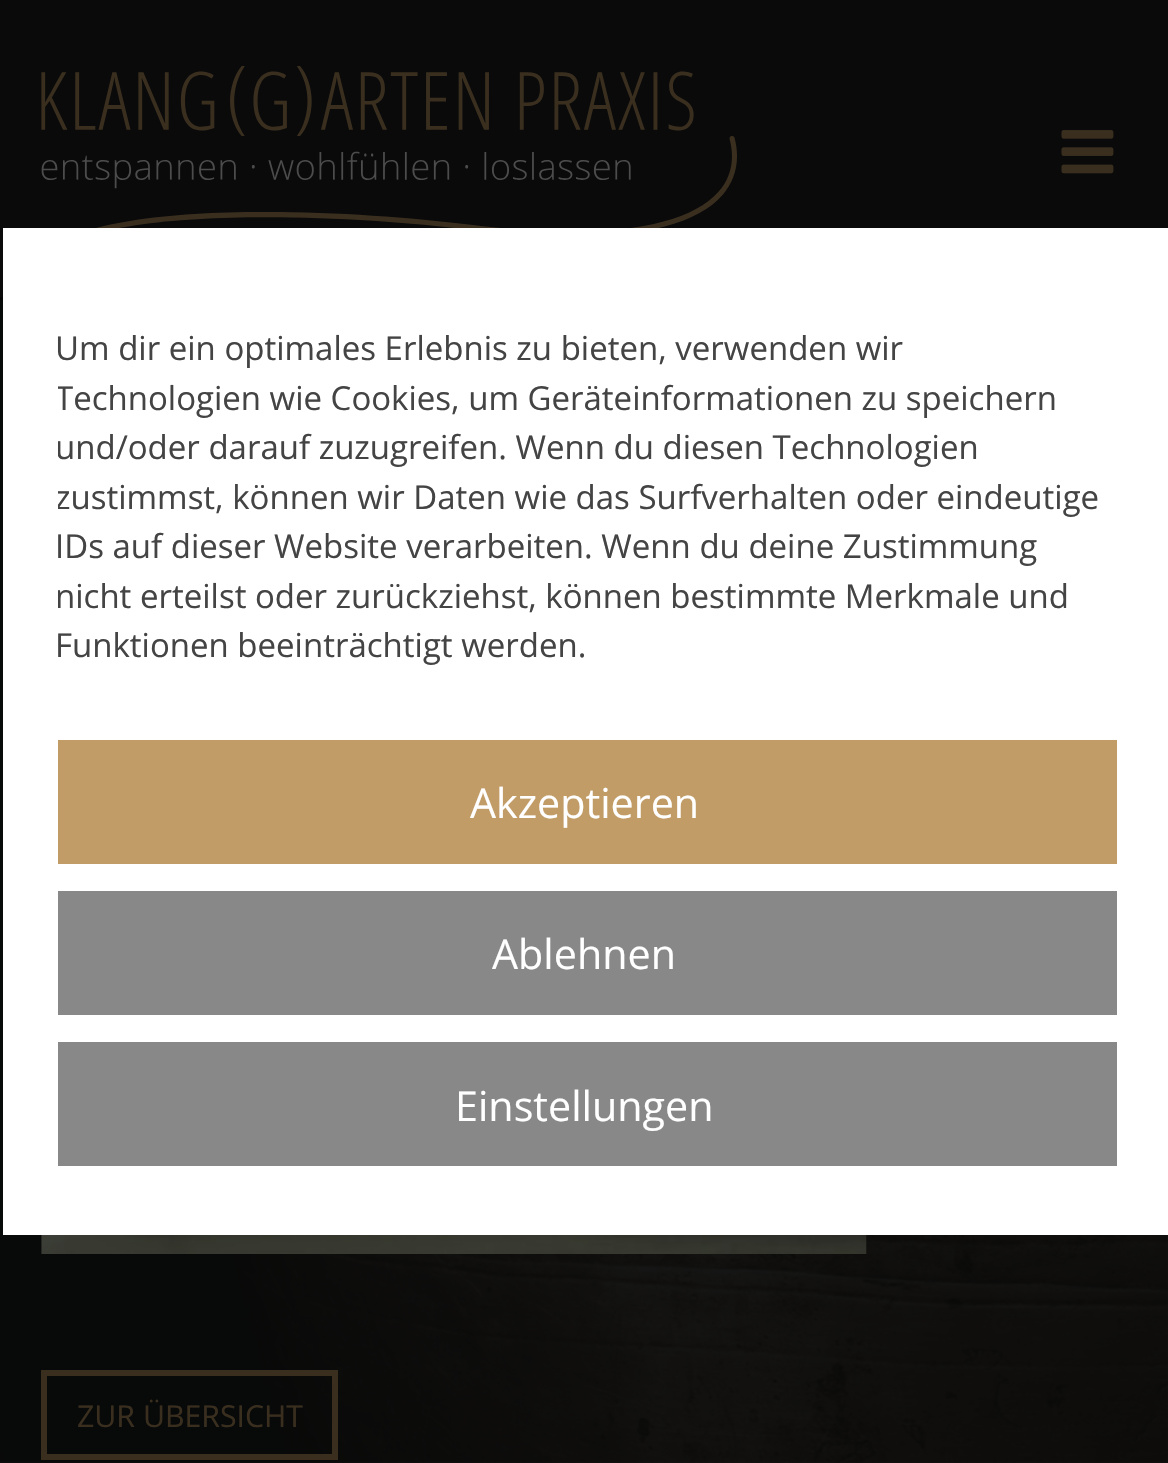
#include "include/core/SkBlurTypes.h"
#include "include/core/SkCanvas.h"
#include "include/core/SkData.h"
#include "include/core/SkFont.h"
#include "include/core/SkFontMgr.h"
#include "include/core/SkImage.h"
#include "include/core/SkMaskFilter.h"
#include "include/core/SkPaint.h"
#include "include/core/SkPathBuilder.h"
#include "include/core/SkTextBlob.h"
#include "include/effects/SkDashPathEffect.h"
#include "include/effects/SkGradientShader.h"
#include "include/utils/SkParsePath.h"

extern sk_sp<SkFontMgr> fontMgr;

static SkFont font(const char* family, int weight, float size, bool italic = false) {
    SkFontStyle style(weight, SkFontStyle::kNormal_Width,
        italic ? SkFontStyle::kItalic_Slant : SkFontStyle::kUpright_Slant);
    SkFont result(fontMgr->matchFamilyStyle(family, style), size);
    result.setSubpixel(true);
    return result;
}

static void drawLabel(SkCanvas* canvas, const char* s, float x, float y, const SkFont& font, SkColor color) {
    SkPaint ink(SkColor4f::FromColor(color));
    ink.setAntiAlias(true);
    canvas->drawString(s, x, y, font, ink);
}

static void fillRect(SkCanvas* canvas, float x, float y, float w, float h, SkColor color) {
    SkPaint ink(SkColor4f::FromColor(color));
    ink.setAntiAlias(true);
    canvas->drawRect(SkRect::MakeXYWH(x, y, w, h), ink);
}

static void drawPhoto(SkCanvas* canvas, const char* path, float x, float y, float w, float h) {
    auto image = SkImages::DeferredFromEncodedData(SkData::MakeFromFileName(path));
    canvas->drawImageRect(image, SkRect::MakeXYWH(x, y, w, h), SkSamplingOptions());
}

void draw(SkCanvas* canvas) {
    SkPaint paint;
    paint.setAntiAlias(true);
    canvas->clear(0xFFFFFFFF);
    drawPhoto(canvas, "assets/img1.png", 0, 0, 1168, 1463);
    fillRect(canvas, 0, 0, 1168, 297, 0xF2090A0A);
    drawPhoto(canvas, "assets/img2.png", 41, 66, 696, 162);
    drawPhoto(canvas, "assets/img3.png", 1061, 130, 53, 44);
    fillRect(canvas, 0, 300, 1168, 1163, 0xD1090A0A);
    fillRect(canvas, 3, 228, 1165, 1007, 0xFFFFFFFF);
    SkFont font1 = font("Open Sans", 400, 33);
    drawLabel(canvas, "Um dir ein optimales Erlebnis zu bieten, verwenden wir", 55, 360, font1, 0xFF444444);
    canvas->save();
    canvas->clipRect(SkRect::MakeXYWH(58, 325, 1059, 360));
    drawLabel(canvas, "Technologien wie Cookies, um Geräteinformationen zu speichern", 55, 410, font1, 0xFF444444);
    drawLabel(canvas, "und/oder darauf zuzugreifen. Wenn du diesen Technologien", 55, 459, font1, 0xFF444444);
    drawLabel(canvas, "zustimmst, können wir Daten wie das Surfverhalten oder eindeutige", 55, 509, font1, 0xFF444444);
    canvas->restore();
    drawLabel(canvas, "IDs auf dieser Website verarbeiten. Wenn du deine Zustimmung", 55, 558, font1, 0xFF444444);
    canvas->save();
    canvas->clipRect(SkRect::MakeXYWH(58, 325, 1059, 360));
    drawLabel(canvas, "nicht erteilst oder zurückziehst, können bestimmte Merkmale und", 55, 608, font1, 0xFF444444);
    canvas->restore();
    drawLabel(canvas, "Funktionen beeinträchtigt werden.", 55, 657, font1, 0xFF444444);
    fillRect(canvas, 58, 740, 1059, 124, 0xFFC19C66);
    SkFont font2 = font("Open Sans", 400, 41.25f);
    drawLabel(canvas, "Akzeptieren", 470, 818, font2, 0xFFFFFFFF);
    fillRect(canvas, 58, 891, 1059, 124, 0xFF888888);
    drawLabel(canvas, "Ablehnen", 492, 969, font2, 0xFFFFFFFF);
    fillRect(canvas, 58, 1042, 1059, 124, 0xFF888888);
    drawLabel(canvas, "Einstellungen", 455, 1121, font2, 0xFFFFFFFF);
    drawPhoto(canvas, "assets/img4.png", 41, 1235, 826, 19);
    paint.setStroke(true);
    paint.setStrokeWidth(6);
    paint.setColor(0xFF3A2F1F);
    canvas->drawRect(SkRect::MakeXYWH(44, 1373, 291, 84), paint);
    SkFont font3 = font("Open Sans", 400, 30.25f);
    drawLabel(canvas, "ZUR ÜBERSICHT", 77, 1427, font3, 0xFF3A2F1F);
}
